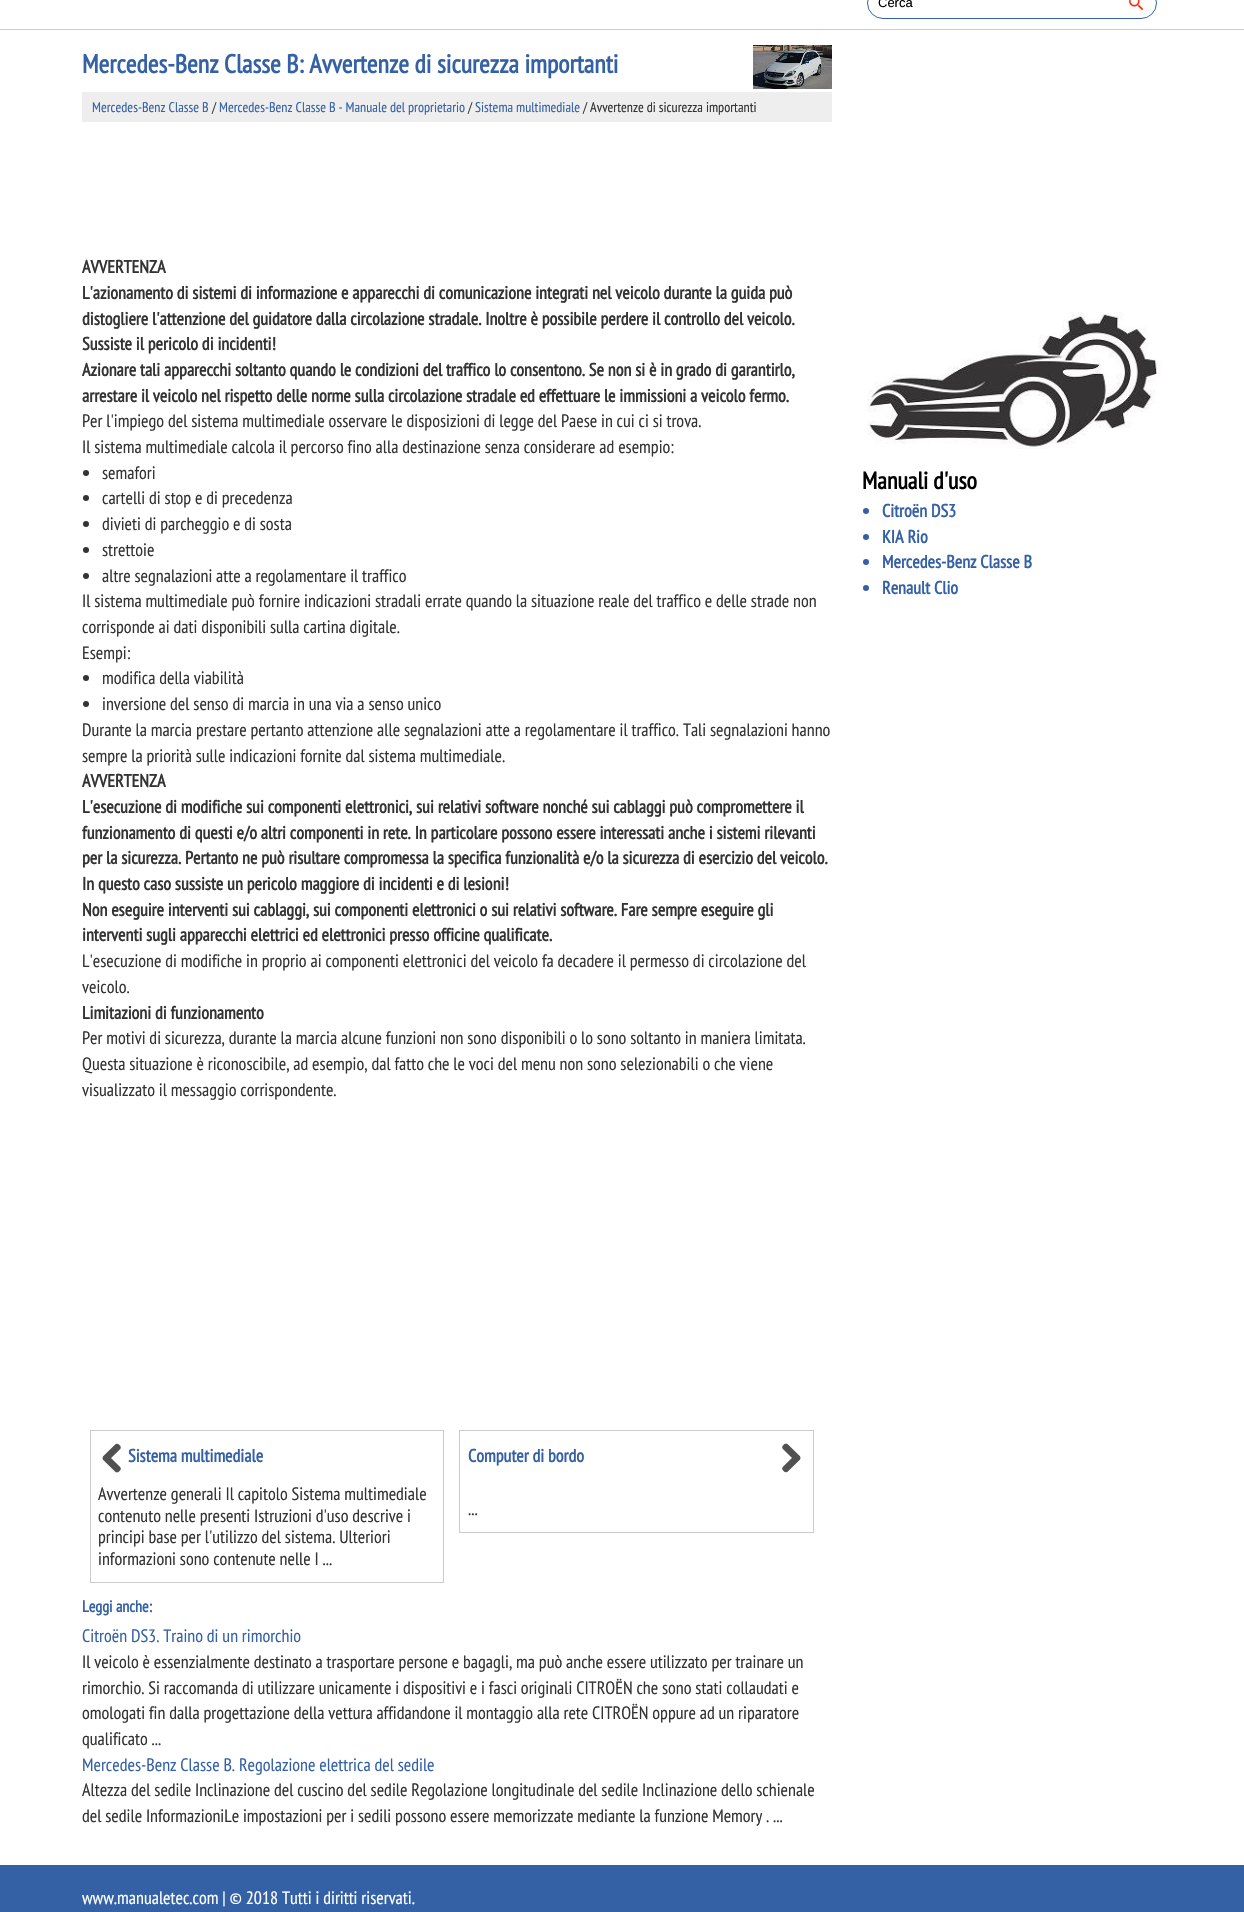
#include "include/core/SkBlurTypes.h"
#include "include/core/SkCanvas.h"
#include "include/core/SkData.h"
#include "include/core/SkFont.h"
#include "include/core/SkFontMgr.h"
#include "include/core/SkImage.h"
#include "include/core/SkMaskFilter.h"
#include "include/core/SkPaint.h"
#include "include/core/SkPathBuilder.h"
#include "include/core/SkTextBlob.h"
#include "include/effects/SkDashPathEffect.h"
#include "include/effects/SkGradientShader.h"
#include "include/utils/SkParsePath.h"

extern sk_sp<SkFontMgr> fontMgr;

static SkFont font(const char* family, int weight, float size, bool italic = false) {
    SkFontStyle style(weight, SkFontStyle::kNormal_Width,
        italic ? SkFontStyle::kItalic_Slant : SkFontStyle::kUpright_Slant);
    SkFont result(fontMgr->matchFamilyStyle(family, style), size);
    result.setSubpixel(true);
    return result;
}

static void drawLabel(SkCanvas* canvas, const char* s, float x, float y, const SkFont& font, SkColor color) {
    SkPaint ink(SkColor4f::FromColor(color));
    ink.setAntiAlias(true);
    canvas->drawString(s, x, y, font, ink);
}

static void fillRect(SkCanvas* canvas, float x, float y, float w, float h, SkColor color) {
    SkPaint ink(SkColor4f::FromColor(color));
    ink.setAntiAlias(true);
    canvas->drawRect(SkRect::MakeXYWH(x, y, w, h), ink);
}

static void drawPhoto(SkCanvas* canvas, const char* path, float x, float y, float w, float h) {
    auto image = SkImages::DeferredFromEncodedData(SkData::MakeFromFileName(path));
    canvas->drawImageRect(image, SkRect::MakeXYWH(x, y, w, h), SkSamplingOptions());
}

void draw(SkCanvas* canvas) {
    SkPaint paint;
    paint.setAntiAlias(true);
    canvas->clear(0xFFFFFFFF);
    fillRect(canvas, 0, 29, 1244, 1, 0xFFCCCCCC);
    paint.setStroke(true);
    paint.setStrokeWidth(1);
    paint.setColor(0xFF3461A6);
    canvas->drawRoundRect(SkRect::MakeXYWH(867.5f, -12.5f, 289, 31), 15.5f, 15.5f, paint);
    SkFont font1 = font("Liberation Sans", 400, 13);
    drawLabel(canvas, "Cerca", 878, 7, font1, 0xFF000000);
    drawPhoto(canvas, "assets/img1.png", 1128, 0, 16, 11);
    SkFont font2 = font("PT Sans Narrow", 700, 26);
    drawLabel(canvas, "Mercedes-Benz Classe B: Avvertenze di sicurezza importanti", 82, 73, font2, 0xFF3461A6);
    drawPhoto(canvas, "assets/img2.png", 753, 45, 79, 44);
    fillRect(canvas, 82, 92, 750, 30, 0xFFEEEEEE);
    SkFont font3 = font("PT Sans Narrow", 400, 14);
    drawLabel(canvas, "Mercedes-Benz Classe B", 92, 112, font3, 0xFF3461A6);
    drawLabel(canvas, "/", 212, 112, font3, 0xFF333333);
    drawLabel(canvas, "Mercedes-Benz Classe B - Manuale del proprietario", 219, 112, font3, 0xFF3461A6);
    drawLabel(canvas, "/", 468, 112, font3, 0xFF333333);
    drawLabel(canvas, "Sistema multimediale", 475, 112, font3, 0xFF3461A6);
    drawLabel(canvas, "/ Avvertenze di sicurezza importanti", 583, 112, font3, 0xFF333333);
    SkFont font4 = font("PT Sans Narrow", 700, 18);
    drawLabel(canvas, "AVVERTENZA", 82, 273, font4, 0xFF333333);
    drawLabel(canvas, "L'azionamento di sistemi di informazione e apparecchi di comunicazione integrati nel veicolo durante la guida può", 82, 299, font4, 0xFF333333);
    drawLabel(canvas, "distogliere l'attenzione del guidatore dalla circolazione stradale. Inoltre è possibile perdere il controllo del veicolo.", 82, 325, font4, 0xFF333333);
    drawLabel(canvas, "Sussiste il pericolo di incidenti!", 82, 350, font4, 0xFF333333);
    drawLabel(canvas, "Azionare tali apparecchi soltanto quando le condizioni del traffico lo consentono. Se non si è in grado di garantirlo,", 82, 376, font4, 0xFF333333);
    drawLabel(canvas, "arrestare il veicolo nel rispetto delle norme sulla circolazione stradale ed effettuare le immissioni a veicolo fermo.", 82, 402, font4, 0xFF333333);
    SkFont font5 = font("PT Sans Narrow", 400, 18);
    drawLabel(canvas, "Per l'impiego del sistema multimediale osservare le disposizioni di legge del Paese in cui ci si trova.", 82, 427, font5, 0xFF333333);
    drawLabel(canvas, "Il sistema multimediale calcola il percorso fino alla destinazione senza considerare ad esempio:", 82, 453, font5, 0xFF333333);
    paint.setStroke(false);
    paint.setColor(0xFF333333);
    canvas->drawCircle(86, 473, 3, paint);
    drawLabel(canvas, "semafori", 102, 479, font5, 0xFF333333);
    canvas->drawCircle(86, 498, 3, paint);
    drawLabel(canvas, "cartelli di stop e di precedenza", 102, 504, font5, 0xFF333333);
    canvas->drawCircle(86, 524, 3, paint);
    drawLabel(canvas, "divieti di parcheggio e di sosta", 102, 530, font5, 0xFF333333);
    canvas->drawCircle(86, 550, 3, paint);
    drawLabel(canvas, "strettoie", 102, 556, font5, 0xFF333333);
    canvas->drawCircle(86, 576, 3, paint);
    drawLabel(canvas, "altre segnalazioni atte a regolamentare il traffico", 102, 582, font5, 0xFF333333);
    drawLabel(canvas, "Il sistema multimediale può fornire indicazioni stradali errate quando la situazione reale del traffico e delle strade non", 82, 607, font5, 0xFF333333);
    drawLabel(canvas, "corrisponde ai dati disponibili sulla cartina digitale.", 82, 633, font5, 0xFF333333);
    drawLabel(canvas, "Esempi:", 82, 659, font5, 0xFF333333);
    canvas->drawCircle(86, 678, 3, paint);
    drawLabel(canvas, "modifica della viabilità", 102, 684, font5, 0xFF333333);
    canvas->drawCircle(86, 704, 3, paint);
    drawLabel(canvas, "inversione del senso di marcia in una via a senso unico", 102, 710, font5, 0xFF333333);
    drawLabel(canvas, "Durante la marcia prestare pertanto attenzione alle segnalazioni atte a regolamentare il traffico. Tali segnalazioni hanno", 82, 736, font5, 0xFF333333);
    drawLabel(canvas, "sempre la priorità sulle indicazioni fornite dal sistema multimediale.", 82, 762, font5, 0xFF333333);
    drawLabel(canvas, "AVVERTENZA", 82, 787, font4, 0xFF333333);
    drawLabel(canvas, "L'esecuzione di modifiche sui componenti elettronici, sui relativi software nonché sui cablaggi può compromettere il", 82, 813, font4, 0xFF333333);
    drawLabel(canvas, "funzionamento di questi e/o altri componenti in rete. In particolare possono essere interessati anche i sistemi rilevanti", 82, 839, font4, 0xFF333333);
    drawLabel(canvas, "per la sicurezza. Pertanto ne può risultare compromessa la specifica funzionalità e/o la sicurezza di esercizio del veicolo.", 82, 864, font4, 0xFF333333);
    drawLabel(canvas, "In questo caso sussiste un pericolo maggiore di incidenti e di lesioni!", 82, 890, font4, 0xFF333333);
    drawLabel(canvas, "Non eseguire interventi sui cablaggi, sui componenti elettronici o sui relativi software. Fare sempre eseguire gli", 82, 916, font4, 0xFF333333);
    drawLabel(canvas, "interventi sugli apparecchi elettrici ed elettronici presso officine qualificate.", 82, 941, font4, 0xFF333333);
    drawLabel(canvas, "L'esecuzione di modifiche in proprio ai componenti elettronici del veicolo fa decadere il permesso di circolazione del", 82, 967, font5, 0xFF333333);
    drawLabel(canvas, "veicolo.", 82, 993, font5, 0xFF333333);
    drawLabel(canvas, "Limitazioni di funzionamento", 82, 1019, font4, 0xFF333333);
    drawLabel(canvas, "Per motivi di sicurezza, durante la marcia alcune funzioni non sono disponibili o lo sono soltanto in maniera limitata.", 82, 1044, font5, 0xFF333333);
    drawLabel(canvas, "Questa situazione è riconoscibile, ad esempio, dal fatto che le voci del menu non sono selezionabili o che viene", 82, 1070, font5, 0xFF333333);
    drawLabel(canvas, "visualizzato il messaggio corrispondente.", 82, 1096, font5, 0xFF333333);
    paint.setStroke(true);
    paint.setColor(0xFFCCCCCC);
    canvas->drawRect(SkRect::MakeXYWH(90.5f, 1430.5f, 353, 152), paint);
    drawPhoto(canvas, "assets/img3.png", 102, 1443, 19, 30);
    drawLabel(canvas, "Sistema multimediale", 128, 1462, font4, 0xFF3461A6);
    drawLabel(canvas, "Avvertenze generali Il capitolo Sistema multimediale", 98, 1500, font5, 0xFF333333);
    drawLabel(canvas, "contenuto nelle presenti Istruzioni d'uso descrive i", 98, 1522, font5, 0xFF333333);
    drawLabel(canvas, "principi base per l'utilizzo del sistema. Ulteriori", 98, 1543, font5, 0xFF333333);
    drawLabel(canvas, "informazioni sono contenute nelle I ...", 98, 1565, font5, 0xFF333333);
    canvas->drawRect(SkRect::MakeXYWH(459.5f, 1430.5f, 354, 102), paint);
    drawPhoto(canvas, "assets/img4.png", 782, 1443, 19, 30);
    drawLabel(canvas, "Computer di bordo", 468, 1462, font4, 0xFF3461A6);
    drawLabel(canvas, "...", 468, 1515, font5, 0xFF333333);
    SkFont font6 = font("PT Sans Narrow", 700, 16);
    drawLabel(canvas, "Leggi anche:", 82, 1612, font6, 0xFF3461A6);
    drawLabel(canvas, "Citroën DS3. Traino di un rimorchio", 82, 1642, font5, 0xFF3461A6);
    drawLabel(canvas, "Il veicolo è essenzialmente destinato a trasportare persone e bagagli, ma può anche essere utilizzato per trainare un", 82, 1668, font5, 0xFF333333);
    drawLabel(canvas, "rimorchio. Si raccomanda di utilizzare unicamente i dispositivi e i fasci originali CITROËN che sono stati collaudati e", 82, 1694, font5, 0xFF333333);
    drawLabel(canvas, "omologati fin dalla progettazione della vettura affidandone il montaggio alla rete CITROËN oppure ad un riparatore", 82, 1719, font5, 0xFF333333);
    drawLabel(canvas, "qualificato ...", 82, 1745, font5, 0xFF333333);
    drawLabel(canvas, "Mercedes-Benz Classe B. Regolazione elettrica del sedile", 82, 1771, font5, 0xFF3461A6);
    drawLabel(canvas, "Altezza del sedile Inclinazione del cuscino del sedile Regolazione longitudinale del sedile Inclinazione dello schienale", 82, 1796, font5, 0xFF333333);
    drawLabel(canvas, "del sedile InformazioniLe impostazioni per i sedili possono essere memorizzate mediante la funzione Memory . ...", 82, 1822, font5, 0xFF333333);
    drawPhoto(canvas, "assets/img5.png", 867, 311, 295, 138);
    SkFont font7 = font("PT Sans Narrow", 700, 24);
    drawLabel(canvas, "Manuali d'uso", 862, 489, font7, 0xFF000000);
    paint.setStroke(false);
    paint.setColor(0xFF3461A6);
    canvas->drawCircle(866, 511, 3, paint);
    drawLabel(canvas, "Citroën DS3", 882, 517, font4, 0xFF3461A6);
    canvas->drawCircle(866, 537, 3, paint);
    drawLabel(canvas, "KIA Rio", 882, 543, font4, 0xFF3461A6);
    canvas->drawCircle(866, 562, 3, paint);
    drawLabel(canvas, "Mercedes-Benz Classe B", 882, 568, font4, 0xFF3461A6);
    canvas->drawCircle(866, 588, 3, paint);
    drawLabel(canvas, "Renault Clio", 882, 594, font4, 0xFF3461A6);
    fillRect(canvas, 0, 1865, 1244, 47, 0xFF3461A6);
    drawLabel(canvas, "www.manualetec.com | © 2018 Tutti i diritti riservati.", 82, 1904, font5, 0xFFFFFFFF);
}
